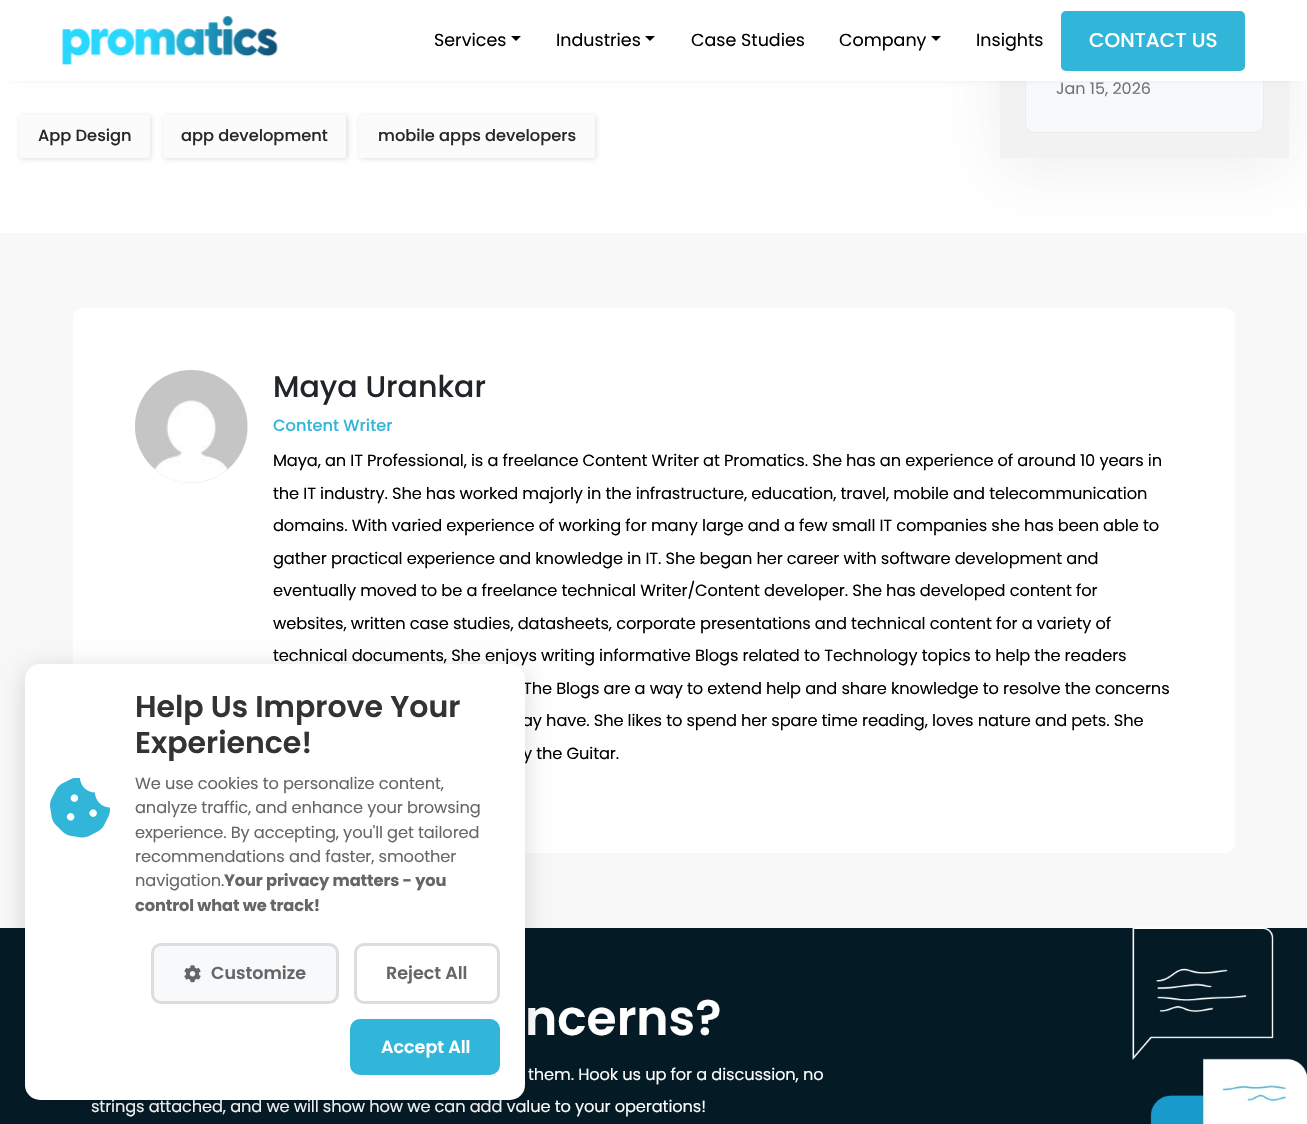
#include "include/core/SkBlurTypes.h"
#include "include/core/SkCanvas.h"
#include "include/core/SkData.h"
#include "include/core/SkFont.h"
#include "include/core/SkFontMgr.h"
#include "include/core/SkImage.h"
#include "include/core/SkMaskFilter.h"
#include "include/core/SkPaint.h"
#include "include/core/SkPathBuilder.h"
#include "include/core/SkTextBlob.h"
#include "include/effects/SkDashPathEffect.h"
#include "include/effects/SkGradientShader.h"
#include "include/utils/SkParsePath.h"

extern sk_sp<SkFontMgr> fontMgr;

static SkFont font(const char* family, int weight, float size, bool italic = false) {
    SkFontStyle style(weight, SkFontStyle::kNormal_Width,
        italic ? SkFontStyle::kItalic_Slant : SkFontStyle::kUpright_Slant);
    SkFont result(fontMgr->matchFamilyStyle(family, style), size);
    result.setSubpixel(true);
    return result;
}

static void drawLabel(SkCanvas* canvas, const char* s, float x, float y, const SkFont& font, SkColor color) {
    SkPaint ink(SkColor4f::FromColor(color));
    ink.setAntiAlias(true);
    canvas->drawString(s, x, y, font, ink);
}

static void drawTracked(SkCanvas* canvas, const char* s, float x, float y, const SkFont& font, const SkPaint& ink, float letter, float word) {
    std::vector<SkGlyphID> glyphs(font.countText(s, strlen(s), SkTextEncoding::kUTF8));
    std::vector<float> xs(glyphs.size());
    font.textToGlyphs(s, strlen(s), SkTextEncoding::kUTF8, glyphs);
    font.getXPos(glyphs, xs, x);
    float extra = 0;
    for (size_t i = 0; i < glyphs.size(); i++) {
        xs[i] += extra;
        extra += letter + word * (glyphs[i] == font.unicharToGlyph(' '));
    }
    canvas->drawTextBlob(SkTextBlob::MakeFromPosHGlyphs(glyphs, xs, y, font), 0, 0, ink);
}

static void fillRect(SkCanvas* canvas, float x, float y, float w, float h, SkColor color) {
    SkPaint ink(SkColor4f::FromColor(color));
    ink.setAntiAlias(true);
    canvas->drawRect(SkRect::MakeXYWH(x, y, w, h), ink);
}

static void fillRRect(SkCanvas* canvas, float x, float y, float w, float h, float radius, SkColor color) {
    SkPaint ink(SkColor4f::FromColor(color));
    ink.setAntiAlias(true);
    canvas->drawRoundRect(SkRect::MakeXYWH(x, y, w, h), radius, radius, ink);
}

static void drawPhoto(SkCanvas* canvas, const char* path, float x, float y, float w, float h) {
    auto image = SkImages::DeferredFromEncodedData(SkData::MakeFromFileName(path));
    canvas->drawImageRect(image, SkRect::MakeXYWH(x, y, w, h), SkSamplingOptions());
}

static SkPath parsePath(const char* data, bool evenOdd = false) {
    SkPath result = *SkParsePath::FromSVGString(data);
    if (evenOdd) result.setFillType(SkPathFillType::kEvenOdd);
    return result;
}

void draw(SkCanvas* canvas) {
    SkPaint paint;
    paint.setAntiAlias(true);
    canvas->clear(0xFFFFFFFF);
    paint.setColor(0x1A666666);
    paint.setMaskFilter(SkMaskFilter::MakeBlur(kNormal_SkBlurStyle, 31));
    canvas->drawRect(SkRect::MakeXYWH(1000, -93, 289, 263), paint);
    paint.setMaskFilter(nullptr);
    fillRect(canvas, 1000, 81, 289, 77, 0xFFF2F2F2);
    paint.setColor(0xFFF8F9FA);
    canvas->drawRoundRect(SkRect::MakeXYWH(1025.5f, -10.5f, 238, 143), 9.5f, 9.5f, paint);
    paint.setStroke(true);
    paint.setStrokeWidth(1);
    paint.setColor(0xFFE9ECEF);
    canvas->drawRoundRect(SkRect::MakeXYWH(1025.5f, -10.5f, 238, 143), 9.5f, 9.5f, paint);
    paint.setStroke(false);
    paint.setColor(0xFF000000);
    paint.setMaskFilter(SkMaskFilter::MakeBlur(kNormal_SkBlurStyle, 6));
    canvas->drawRect(SkRect::MakeXYWH(11, 11, 1285, 59), paint);
    paint.setMaskFilter(nullptr);
    fillRect(canvas, 0, 0, 1307, 81, 0xFFFFFFFF);
    drawPhoto(canvas, "assets/img1.png", 62, 16, 216, 50);
    SkFont font1 = font("Poppins", 400, 17.5f);
    drawLabel(canvas, "Services", 434, 46, font1, 0xFF000000);
    canvas->drawPath(parsePath("M511 36H521L516 41Z"), paint);
    drawLabel(canvas, "Industries", 556, 46, font1, 0xFF000000);
    canvas->drawPath(parsePath("M645 36H655L650 41Z"), paint);
    drawLabel(canvas, "Case Studies", 691, 46, font1, 0xFF000000);
    drawLabel(canvas, "Company", 839, 46, font1, 0xFF000000);
    canvas->drawPath(parsePath("M931 36H941L936 41Z"), paint);
    drawLabel(canvas, "Insights", 976, 46, font1, 0xFF000000);
    fillRRect(canvas, 1061, 11, 184, 60, 5, 0xFF31B5D8);
    SkFont font2 = font("Poppins", 500, 20);
    drawLabel(canvas, "CONTACT US", 1089, 47, font2, 0xFFFFFFFF);
    SkFont font3 = font("Poppins", 400, 16);
    drawLabel(canvas, "Jan 15, 2026", 1056, 94, font3, 0xFF6C757D);
    paint.setColor(0xFFE1E1E1);
    paint.setMaskFilter(SkMaskFilter::MakeBlur(kNormal_SkBlurStyle, 2.5f));
    canvas->drawRoundRect(SkRect::MakeXYWH(20, 116, 131, 43), 2.5f, 2.5f, paint);
    paint.setMaskFilter(nullptr);
    fillRRect(canvas, 19, 115, 131, 43, 2.5f, 0xFFFBFBFB);
    SkFont font4 = font("Poppins", 500, 16.25f);
    drawLabel(canvas, "App Design", 38, 141, font4, 0xFF282828);
    paint.setMaskFilter(SkMaskFilter::MakeBlur(kNormal_SkBlurStyle, 2.5f));
    canvas->drawRoundRect(SkRect::MakeXYWH(164, 116, 184, 43), 2.5f, 2.5f, paint);
    paint.setMaskFilter(nullptr);
    fillRRect(canvas, 163, 115, 183, 43, 2.5f, 0xFFFBFBFB);
    drawLabel(canvas, "app development", 181, 141, font4, 0xFF282828);
    paint.setMaskFilter(SkMaskFilter::MakeBlur(kNormal_SkBlurStyle, 2.5f));
    canvas->drawRoundRect(SkRect::MakeXYWH(360, 116, 236, 43), 2.5f, 2.5f, paint);
    paint.setMaskFilter(nullptr);
    fillRRect(canvas, 359, 115, 236, 43, 2.5f, 0xFFFBFBFB);
    drawLabel(canvas, "mobile apps developers", 378, 141, font4, 0xFF282828);
    fillRect(canvas, 0, 233, 1307, 695, 0xFFF7F8F7);
    fillRRect(canvas, 73, 308, 1162, 545, 9, 0xFFFFFFFF);
    paint.setColor(0xFFEDEDED);
    canvas->drawCircle(191.5f, 426.5f, 56.5f, paint);
    drawPhoto(canvas, "assets/img2.png", 135, 370, 113, 113);
    SkFont font5 = font("Poppins", 500, 30);
    drawLabel(canvas, "Maya Urankar", 273, 397, font5, 0xFF212529);
    drawLabel(canvas, "Content Writer", 273, 431, font4, 0xFF31B5D8);
    SkFont font6 = font("Poppins", 400, 16.25f);
    paint.setColor(0xFF000000);
    drawTracked(canvas, "Maya, an IT Professional, is a freelance Content Writer at Promatics. She has an experience of around 10 years in", 273, 466, font6, paint, -0.12f, 0);
    drawTracked(canvas, "the IT industry. She has worked majorly in the infrastructure, education, travel, mobile and telecommunication", 273, 499, font6, paint, -0.12f, 0);
    drawTracked(canvas, "domains. With varied experience of working for many large and a few small IT companies she has been able to", 273, 531, font6, paint, -0.12f, 0);
    drawTracked(canvas, "gather practical experience and knowledge in IT. She began her career with software development and", 273, 564, font6, paint, -0.12f, 0);
    drawTracked(canvas, "eventually moved to be a freelance technical Writer/Content developer. She has developed content for", 273, 596, font6, paint, -0.12f, 0);
    drawTracked(canvas, "websites, written case studies, datasheets, corporate presentations and technical content for a variety of", 273, 629, font6, paint, -0.12f, 0);
    drawTracked(canvas, "technical documents, She enjoys writing informative Blogs related to Technology topics to help the readers", 273, 661, font6, paint, -0.12f, 0);
    drawTracked(canvas, "The Blogs are a way to extend help and share knowledge to resolve the concerns", 523, 694, font6, paint, -0.12f, 0);
    drawTracked(canvas, "ay have. She likes to spend her spare time reading, loves nature and pets. She", 522, 726, font6, paint, -0.12f, 0);
    drawTracked(canvas, "y the Guitar.", 523, 759, font6, paint, -0.12f, 0);
    fillRect(canvas, 0, 928, 1307, 196, 0xFF041B26);
    SkFont font7 = font("Poppins", 600, 48.75f);
    drawLabel(canvas, "ncerns?", 525, 1035, font7, 0xFFFFFFFF);
    paint.setColor(0xFFFFFFFF);
    drawTracked(canvas, "them. Hook us up for a discussion, no", 528, 1080, font6, paint, -0.12f, 0);
    drawTracked(canvas, "strings attached, and we will show how we can add value to your operations!", 91, 1112, font6, paint, -0.12f, 0);
    drawPhoto(canvas, "assets/img3.png", 1132, 927, 175, 197);
    paint.setColor(0x26000000);
    paint.setMaskFilter(SkMaskFilter::MakeBlur(kNormal_SkBlurStyle, 12.5f));
    canvas->drawRoundRect(SkRect::MakeXYWH(25, 669, 500, 436), 15, 15, paint);
    paint.setMaskFilter(nullptr);
    fillRRect(canvas, 25, 664, 500, 436, 15, 0xFFFFFFFF);
    drawPhoto(canvas, "assets/img4.png", 50, 778, 60, 60);
    SkFont font8 = font("Poppins", 600, 30);
    drawLabel(canvas, "Help Us Improve Your", 135, 717, font8, 0xFF333333);
    drawLabel(canvas, "Experience!", 135, 753, font8, 0xFF333333);
    paint.setColor(0xFF666666);
    drawTracked(canvas, "We use cookies to personalize content,", 135, 789, font6, paint, -0.12f, 0);
    drawTracked(canvas, "analyze traffic, and enhance your browsing", 135, 813, font6, paint, -0.12f, 0);
    drawTracked(canvas, "experience. By accepting, you'll get tailored", 135, 838, font6, paint, -0.12f, 0);
    drawTracked(canvas, "recommendations and faster, smoother", 135, 862, font6, paint, -0.12f, 0);
    drawTracked(canvas, "navigation.", 135, 886, font6, paint, -0.12f, 0);
    SkFont font9 = font("Poppins", 700, 16.25f);
    drawTracked(canvas, "Your privacy matters - you", 224, 886, font9, paint, -0.12f, 0);
    drawTracked(canvas, "control what we track!", 135, 911, font9, paint, -0.12f, 0);
    paint.setColor(0xFFF8F9FA);
    canvas->drawRoundRect(SkRect::MakeXYWH(152.5f, 944.5f, 185, 58), 8.5f, 8.5f, paint);
    paint.setStroke(true);
    paint.setStrokeWidth(3);
    paint.setColor(0xFFDDDDDD);
    canvas->drawRoundRect(SkRect::MakeXYWH(152.5f, 944.5f, 185, 58), 8.5f, 8.5f, paint);
    drawPhoto(canvas, "assets/img5.png", 184, 965, 17, 18);
    SkFont font10 = font("Poppins", 600, 17.5f);
    drawLabel(canvas, "Customize", 211, 979, font10, 0xFF666666);
    canvas->drawRoundRect(SkRect::MakeXYWH(355.5f, 944.5f, 143, 58), 8.5f, 8.5f, paint);
    drawLabel(canvas, "Reject All", 386, 979, font10, 0xFF666666);
    fillRRect(canvas, 350, 1019, 150, 56, 10, 0xFF31B5D8);
    drawLabel(canvas, "Accept All", 381, 1053, font10, 0xFFFFFFFF);
}
